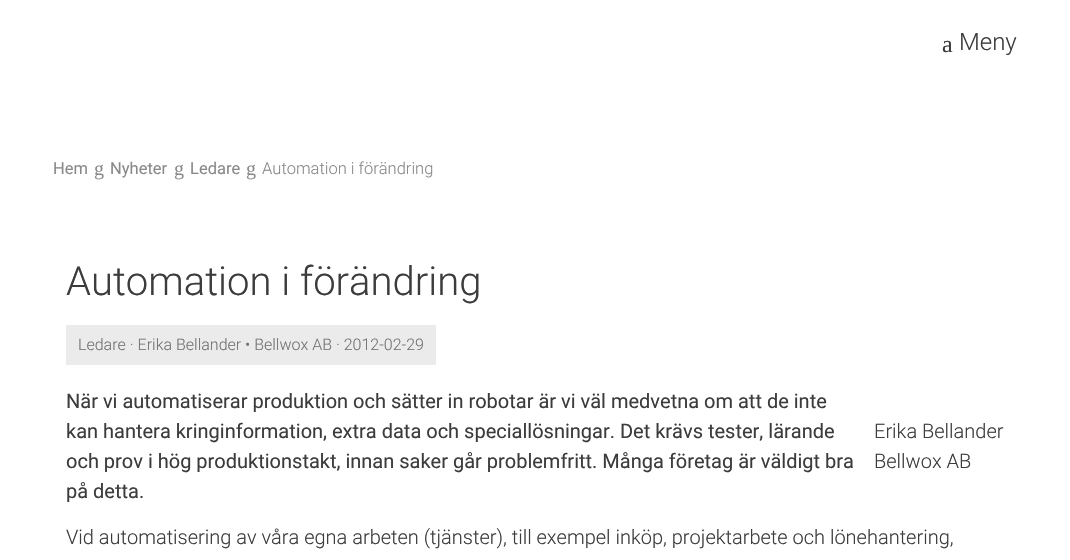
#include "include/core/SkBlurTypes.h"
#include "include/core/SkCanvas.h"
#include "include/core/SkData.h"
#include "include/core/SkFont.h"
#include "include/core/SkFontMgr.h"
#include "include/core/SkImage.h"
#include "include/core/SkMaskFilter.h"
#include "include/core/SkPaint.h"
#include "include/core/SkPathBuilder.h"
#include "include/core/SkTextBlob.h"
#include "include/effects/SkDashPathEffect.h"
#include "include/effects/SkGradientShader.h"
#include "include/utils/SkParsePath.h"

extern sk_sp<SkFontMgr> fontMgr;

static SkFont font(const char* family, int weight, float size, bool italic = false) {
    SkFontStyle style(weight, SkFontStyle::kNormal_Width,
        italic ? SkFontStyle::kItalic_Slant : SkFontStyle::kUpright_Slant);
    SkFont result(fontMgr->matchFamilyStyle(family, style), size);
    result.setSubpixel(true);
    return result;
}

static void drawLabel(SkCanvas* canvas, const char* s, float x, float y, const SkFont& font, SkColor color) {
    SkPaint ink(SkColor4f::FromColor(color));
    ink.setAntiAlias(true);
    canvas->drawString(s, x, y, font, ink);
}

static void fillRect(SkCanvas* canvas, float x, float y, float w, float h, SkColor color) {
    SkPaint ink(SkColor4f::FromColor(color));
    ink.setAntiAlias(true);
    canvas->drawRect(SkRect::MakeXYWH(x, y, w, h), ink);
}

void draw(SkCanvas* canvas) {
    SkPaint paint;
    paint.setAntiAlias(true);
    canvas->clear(0xFFFFFFFF);
    SkFont font1 = font("Liberation Serif", 400, 24);
    drawLabel(canvas, "a", 942, 52, font1, 0xFF3C3C3C);
    SkFont font2 = font("Roboto", 300, 24);
    drawLabel(canvas, "Meny", 959, 50, font2, 0xFF3C3C3C);
    SkFont font3 = font("Roboto", 400, 16.5f);
    drawLabel(canvas, "Hem", 53, 174, font3, 0xFF8A8A8A);
    SkFont font4 = font("Liberation Serif", 400, 20);
    drawLabel(canvas, "g", 94, 175, font4, 0xFF8A8A8A);
    drawLabel(canvas, "Nyheter", 110, 174, font3, 0xFF8A8A8A);
    drawLabel(canvas, "g", 174, 175, font4, 0xFF8A8A8A);
    drawLabel(canvas, "Ledare", 190, 174, font3, 0xFF8A8A8A);
    drawLabel(canvas, "g", 246, 175, font4, 0xFF8A8A8A);
    SkFont font5 = font("Roboto", 300, 16.5f);
    drawLabel(canvas, "Automation i förändring", 262, 174, font5, 0xFF8A8A8A);
    SkFont font6 = font("Roboto", 300, 40);
    drawLabel(canvas, "Automation i förändring", 66, 295, font6, 0xFF3C3C3C);
    fillRect(canvas, 66, 325, 370, 40, 0xFFEBEBEB);
    SkFont font7 = font("Roboto", 300, 16);
    drawLabel(canvas, "Ledare · Erika Bellander • Bellwox AB · 2012-02-29", 78, 350, font7, 0xFF737373);
    SkFont font8 = font("Roboto", 400, 20);
    drawLabel(canvas, "När vi automatiserar produktion och sätter in robotar är vi väl medvetna om att de inte", 66, 408, font8, 0xFF3C3C3C);
    drawLabel(canvas, "kan hantera kringinformation, extra data och speciallösningar. Det krävs tester, lärande", 66, 438, font8, 0xFF3C3C3C);
    drawLabel(canvas, "och prov i hög produktionstakt, innan saker går problemfritt. Många företag är väldigt bra", 66, 468, font8, 0xFF3C3C3C);
    drawLabel(canvas, "på detta.", 66, 498, font8, 0xFF3C3C3C);
    SkFont font9 = font("Roboto", 300, 20);
    drawLabel(canvas, "Erika Bellander", 874, 438, font9, 0xFF3C3C3C);
    drawLabel(canvas, "Bellwox AB", 874, 468, font9, 0xFF3C3C3C);
    drawLabel(canvas, "Vid automatisering av våra egna arbeten (tjänster), till exempel inköp, projektarbete och lönehantering,", 66, 544, font9, 0xFF3C3C3C);
}
